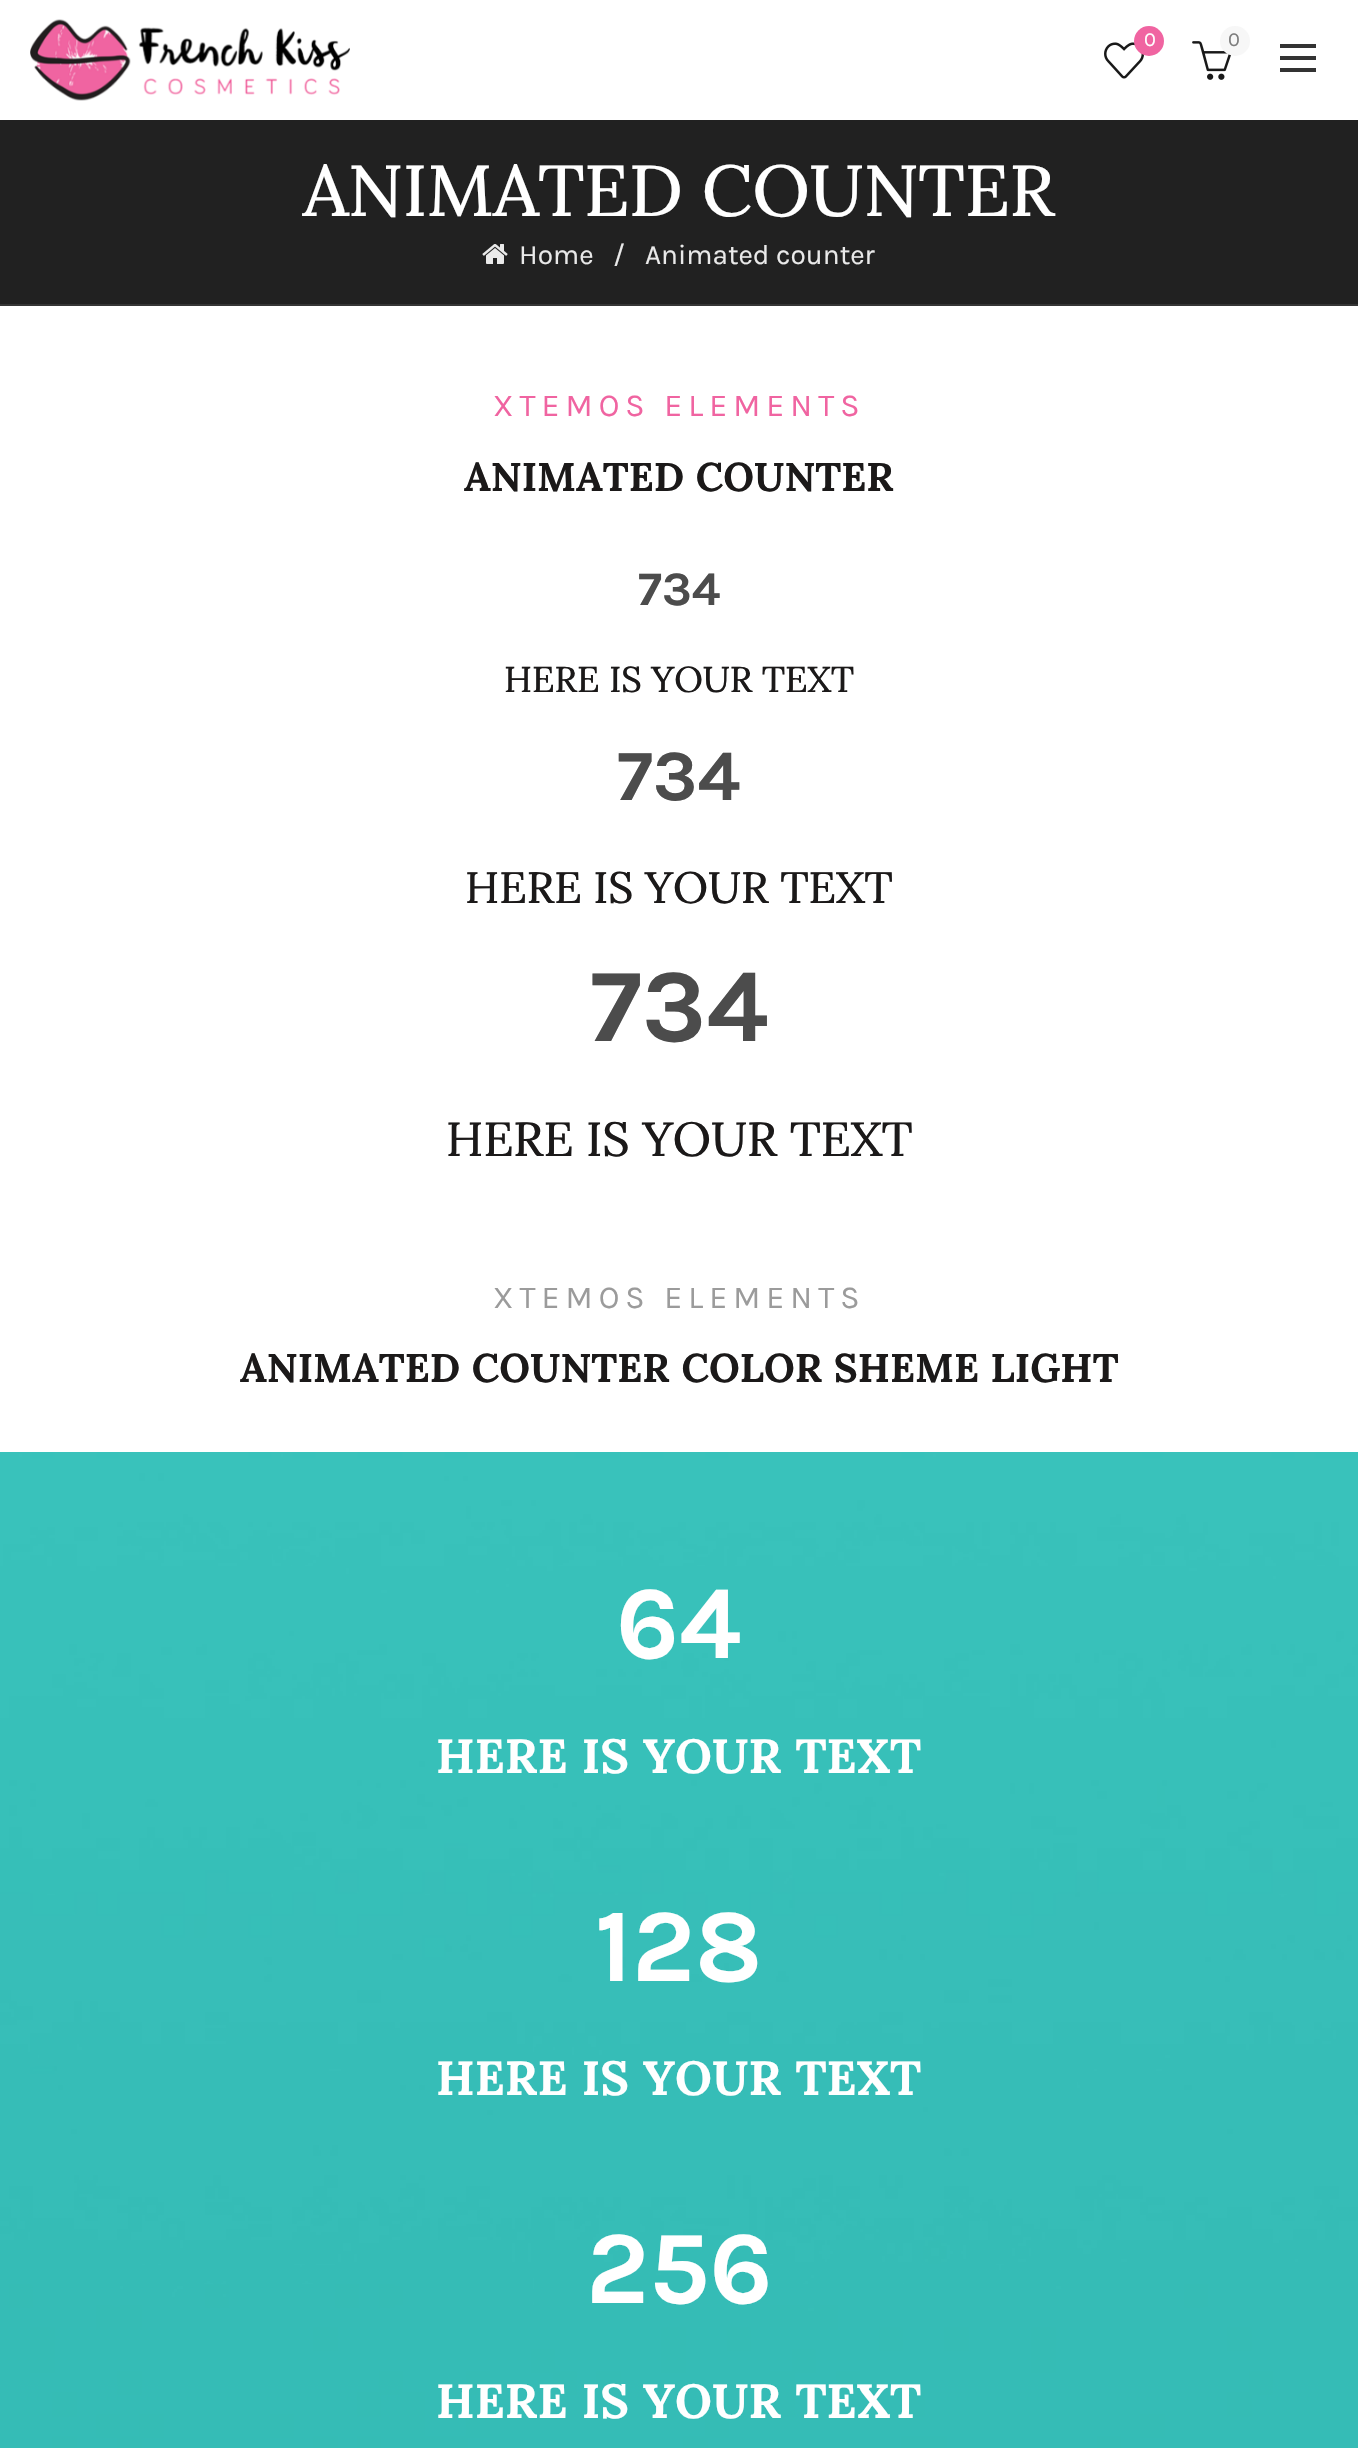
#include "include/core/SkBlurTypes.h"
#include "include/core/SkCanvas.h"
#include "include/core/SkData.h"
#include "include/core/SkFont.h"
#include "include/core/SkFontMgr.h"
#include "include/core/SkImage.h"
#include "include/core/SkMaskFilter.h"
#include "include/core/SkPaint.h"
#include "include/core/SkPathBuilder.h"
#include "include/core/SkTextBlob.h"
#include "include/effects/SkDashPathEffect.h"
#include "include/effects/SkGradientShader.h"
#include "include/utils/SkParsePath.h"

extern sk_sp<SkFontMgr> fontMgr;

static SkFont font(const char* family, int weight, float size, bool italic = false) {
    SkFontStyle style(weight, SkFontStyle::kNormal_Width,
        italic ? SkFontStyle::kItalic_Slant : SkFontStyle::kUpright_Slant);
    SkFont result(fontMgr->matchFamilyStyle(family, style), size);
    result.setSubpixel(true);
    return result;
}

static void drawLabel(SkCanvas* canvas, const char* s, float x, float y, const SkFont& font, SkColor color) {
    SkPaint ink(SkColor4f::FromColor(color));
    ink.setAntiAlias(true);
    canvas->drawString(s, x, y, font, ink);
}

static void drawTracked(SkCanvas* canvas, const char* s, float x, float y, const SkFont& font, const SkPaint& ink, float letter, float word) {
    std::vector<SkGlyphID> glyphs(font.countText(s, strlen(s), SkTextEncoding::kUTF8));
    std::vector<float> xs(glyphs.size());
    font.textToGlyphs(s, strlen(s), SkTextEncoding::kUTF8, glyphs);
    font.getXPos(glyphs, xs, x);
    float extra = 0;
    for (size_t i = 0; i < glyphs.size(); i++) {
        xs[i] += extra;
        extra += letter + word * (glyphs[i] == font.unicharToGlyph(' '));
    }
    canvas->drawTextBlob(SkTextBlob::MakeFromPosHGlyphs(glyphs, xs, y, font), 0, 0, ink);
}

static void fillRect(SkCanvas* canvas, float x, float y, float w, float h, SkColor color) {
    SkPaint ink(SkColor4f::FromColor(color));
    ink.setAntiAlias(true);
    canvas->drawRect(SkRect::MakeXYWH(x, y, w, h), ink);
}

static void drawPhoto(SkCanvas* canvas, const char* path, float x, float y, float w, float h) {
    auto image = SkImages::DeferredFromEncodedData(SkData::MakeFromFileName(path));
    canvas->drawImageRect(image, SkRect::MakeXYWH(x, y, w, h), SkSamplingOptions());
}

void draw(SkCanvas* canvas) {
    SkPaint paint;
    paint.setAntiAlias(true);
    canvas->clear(0xFFFFFFFF);
    drawPhoto(canvas, "assets/img1.png", 30, 19, 320, 82);
    drawPhoto(canvas, "assets/img2.png", 1104, 42, 40, 37);
    paint.setColor(0xFFF064A1);
    canvas->drawCircle(1149, 41, 15, paint);
    SkFont font1 = font("Karla", 400, 20);
    drawLabel(canvas, "0", 1144, 46, font1, 0xFFFFFFFF);
    drawPhoto(canvas, "assets/img3.png", 1192, 41, 39, 39);
    paint.setColor(0xFFF7F7F7);
    canvas->drawCircle(1235, 41, 15, paint);
    drawLabel(canvas, "0", 1228, 46, font1, 0xFF7E7E7E);
    fillRect(canvas, 1280, 56, 36, 4, 0xFF333333);
    fillRect(canvas, 1280, 44, 36, 4, 0xFF333333);
    fillRect(canvas, 1280, 68, 36, 4, 0xFF333333);
    fillRect(canvas, 0, 120, 1358, 184, 0xFF212121);
    fillRect(canvas, 0, 304, 1358, 2, 0xFF353535);
    SkFont font2 = font("Sumana", 400, 72);
    drawLabel(canvas, "ANIMATED COUNTER", 303, 216, font2, 0xFFFFFFFF);
    drawPhoto(canvas, "assets/img4.png", 482, 244, 26, 20);
    SkFont font3 = font("Karla", 400, 28);
    drawLabel(canvas, "Home", 519, 264, font3, 0xFFE9E9E9);
    drawLabel(canvas, "/", 613, 264, font3, 0xFFE9E9E9);
    drawLabel(canvas, "Animated counter", 645, 264, font3, 0xFFE9E9E9);
    SkFont font4 = font("Karla", 400, 32);
    paint.setColor(0xFFF064A1);
    drawTracked(canvas, "XTEMOS ELEMENTS", 493, 416, font4, paint, 6, 0);
    SkFont font5 = font("Sumana", 700, 40);
    drawLabel(canvas, "ANIMATED COUNTER", 464, 491, font5, 0xFF1B1919);
    SkFont font6 = font("Karla", 700, 48);
    drawLabel(canvas, "734", 638, 605, font6, 0xFF4C4C4C);
    SkFont font7 = font("Sumana", 400, 36);
    drawLabel(canvas, "HERE IS YOUR TEXT", 504, 692, font7, 0xFF1B1919);
    SkFont font8 = font("Karla", 700, 72);
    drawLabel(canvas, "734", 617, 800, font8, 0xFF4C4C4C);
    SkFont font9 = font("Sumana", 400, 44);
    drawLabel(canvas, "HERE IS YOUR TEXT", 465, 903, font9, 0xFF1B1919);
    SkFont font10 = font("Karla", 700, 104);
    drawLabel(canvas, "734", 590, 1041, font10, 0xFF4C4C4C);
    SkFont font11 = font("Sumana", 400, 48);
    drawLabel(canvas, "HERE IS YOUR TEXT", 446, 1156, font11, 0xFF1B1919);
    paint.setColor(0xFF9B9B9B);
    drawTracked(canvas, "XTEMOS ELEMENTS", 493, 1308, font4, paint, 6, 0);
    drawLabel(canvas, "ANIMATED COUNTER COLOR SHEME LIGHT", 240, 1382, font5, 0xFF1B1919);
    drawPhoto(canvas, "assets/img5.png", 0, 1452, 1358, 996);
    drawLabel(canvas, "64", 616, 1658, font10, 0xFFFFFFFF);
    SkFont font12 = font("Sumana", 700, 48);
    drawLabel(canvas, "HERE IS YOUR TEXT", 436, 1773, font12, 0xFFFFFFFF);
    drawLabel(canvas, "128", 595, 1981, font10, 0xFFFFFFFF);
    drawLabel(canvas, "HERE IS YOUR TEXT", 436, 2095, font12, 0xFFFFFFFF);
    drawLabel(canvas, "256", 586, 2303, font10, 0xFFFFFFFF);
    drawLabel(canvas, "HERE IS YOUR TEXT", 436, 2418, font12, 0xFFFFFFFF);
}
